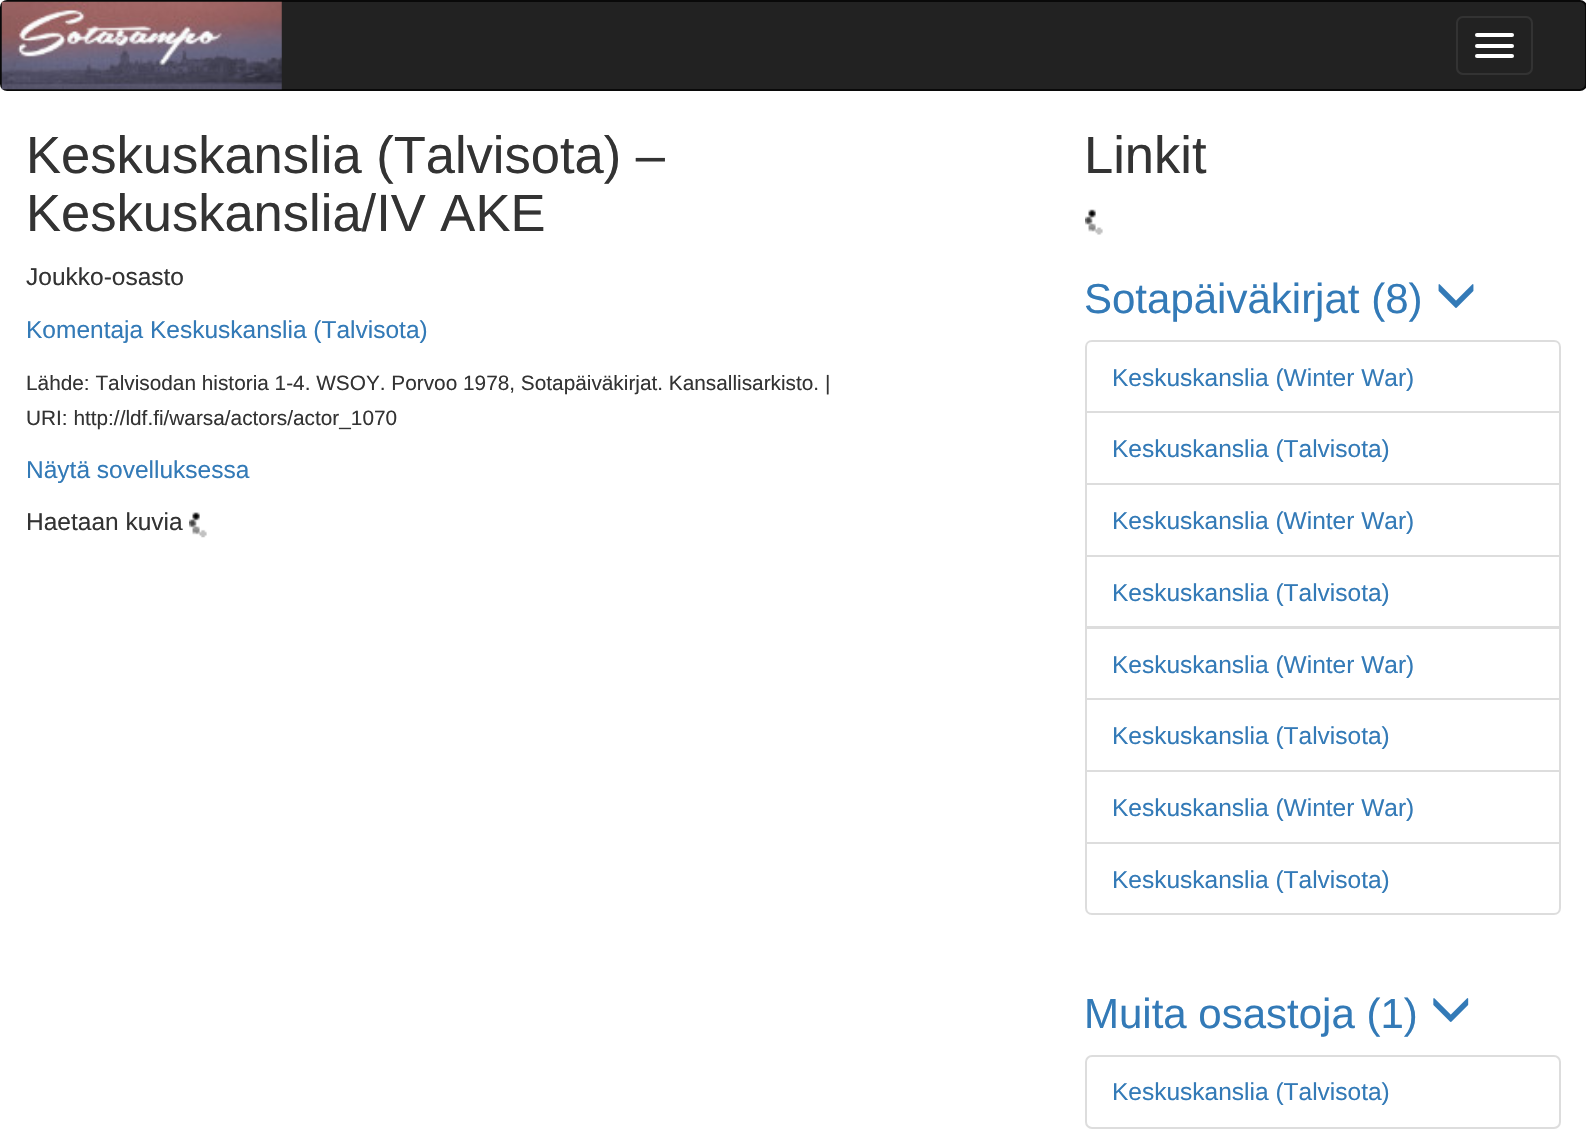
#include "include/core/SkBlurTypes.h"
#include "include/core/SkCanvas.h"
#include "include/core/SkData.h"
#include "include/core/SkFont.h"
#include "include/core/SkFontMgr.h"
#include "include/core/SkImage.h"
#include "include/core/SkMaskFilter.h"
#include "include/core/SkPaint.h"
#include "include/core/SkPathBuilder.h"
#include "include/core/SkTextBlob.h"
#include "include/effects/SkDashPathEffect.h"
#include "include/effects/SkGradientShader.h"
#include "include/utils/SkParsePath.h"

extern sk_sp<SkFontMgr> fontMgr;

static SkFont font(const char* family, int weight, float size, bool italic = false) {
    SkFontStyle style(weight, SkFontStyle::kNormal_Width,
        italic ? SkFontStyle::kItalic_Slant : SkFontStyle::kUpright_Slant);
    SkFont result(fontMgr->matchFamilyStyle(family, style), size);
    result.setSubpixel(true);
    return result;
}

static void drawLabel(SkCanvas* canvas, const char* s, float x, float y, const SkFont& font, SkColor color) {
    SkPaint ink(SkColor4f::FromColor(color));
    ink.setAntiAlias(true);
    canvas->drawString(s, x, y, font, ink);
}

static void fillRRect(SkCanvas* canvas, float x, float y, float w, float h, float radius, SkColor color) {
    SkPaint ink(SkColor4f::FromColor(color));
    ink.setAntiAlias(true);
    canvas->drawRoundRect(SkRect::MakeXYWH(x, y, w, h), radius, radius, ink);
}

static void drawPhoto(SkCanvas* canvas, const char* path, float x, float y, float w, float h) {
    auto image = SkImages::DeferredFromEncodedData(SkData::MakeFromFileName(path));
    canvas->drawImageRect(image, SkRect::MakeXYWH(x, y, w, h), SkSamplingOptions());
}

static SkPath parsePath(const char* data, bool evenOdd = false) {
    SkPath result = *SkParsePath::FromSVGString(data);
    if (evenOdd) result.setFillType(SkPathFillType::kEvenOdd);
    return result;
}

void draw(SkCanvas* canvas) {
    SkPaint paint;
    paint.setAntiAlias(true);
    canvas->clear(0xFFFFFFFF);
    paint.setColor(0xFF222222);
    canvas->drawRoundRect(SkRect::MakeXYWH(1, 1, 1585, 89), 6, 6, paint);
    paint.setStroke(true);
    paint.setStrokeWidth(2);
    paint.setColor(0xFF090909);
    canvas->drawRoundRect(SkRect::MakeXYWH(1, 1, 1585, 89), 6, 6, paint);
    drawPhoto(canvas, "assets/img1.png", 1, 1, 281, 89);
    paint.setColor(0xFF333333);
    canvas->drawRoundRect(SkRect::MakeXYWH(1457, 17, 75, 57), 6, 6, paint);
    fillRRect(canvas, 1475, 33, 39, 4, 2, 0xFFFFFFFF);
    fillRRect(canvas, 1475, 44, 39, 4, 2, 0xFFFFFFFF);
    fillRRect(canvas, 1475, 54, 39, 4, 2, 0xFFFFFFFF);
    SkFont font1 = font("Liberation Sans", 400, 52.5f);
    drawLabel(canvas, "Keskuskanslia (Talvisota) –", 26, 173, font1, 0xFF333333);
    drawLabel(canvas, "Keskuskanslia/IV AKE", 26, 231, font1, 0xFF333333);
    SkFont font2 = font("Liberation Sans", 400, 24.5f);
    drawLabel(canvas, "Joukko-osasto", 26, 285, font2, 0xFF333333);
    drawLabel(canvas, "Komentaja Keskuskanslia (Talvisota)", 26, 338, font2, 0xFF337AB7);
    SkFont font3 = font("Liberation Sans", 400, 20.8f);
    drawLabel(canvas, "Lähde: Talvisodan historia 1-4. WSOY. Porvoo 1978, Sotapäiväkirjat. Kansallisarkisto. |", 26, 390, font3, 0xFF333333);
    drawLabel(canvas, "URI: http://ldf.fi/warsa/actors/actor_1070", 26, 425, font3, 0xFF333333);
    drawLabel(canvas, "Näytä sovelluksessa", 26, 478, font2, 0xFF337AB7);
    drawLabel(canvas, "Haetaan kuvia", 26, 530, font2, 0xFF333333);
    drawPhoto(canvas, "assets/img2.png", 189, 512, 18, 26);
    drawLabel(canvas, "Linkit", 1084, 173, font1, 0xFF333333);
    drawPhoto(canvas, "assets/img3.png", 1085, 209, 18, 26);
    SkFont font4 = font("Liberation Sans", 400, 42);
    drawLabel(canvas, "Sotapäiväkirjat (8)", 1084, 313, font4, 0xFF337AB7);
    drawPhoto(canvas, "assets/img4.png", 1438, 284, 36, 24);
    paint.setColor(0xFFDDDDDD);
    canvas->drawPath(parsePath("M1092 341H1554C1557.5 341 1560 343.5 1560 347V412H1086V347C1086 343.5 1088.5 341 1092 341Z"), paint);
    drawLabel(canvas, "Keskuskanslia (Winter War)", 1112, 386, font2, 0xFF337AB7);
    canvas->drawRect(SkRect::MakeXYWH(1086, 412, 474, 72), paint);
    drawLabel(canvas, "Keskuskanslia (Talvisota)", 1112, 457, font2, 0xFF337AB7);
    canvas->drawRect(SkRect::MakeXYWH(1086, 484, 474, 72), paint);
    drawLabel(canvas, "Keskuskanslia (Winter War)", 1112, 529, font2, 0xFF337AB7);
    canvas->drawRect(SkRect::MakeXYWH(1086, 556, 474, 71), paint);
    drawLabel(canvas, "Keskuskanslia (Talvisota)", 1112, 601, font2, 0xFF337AB7);
    canvas->drawRect(SkRect::MakeXYWH(1086, 628, 474, 71), paint);
    drawLabel(canvas, "Keskuskanslia (Winter War)", 1112, 673, font2, 0xFF337AB7);
    canvas->drawRect(SkRect::MakeXYWH(1086, 699, 474, 72), paint);
    drawLabel(canvas, "Keskuskanslia (Talvisota)", 1112, 744, font2, 0xFF337AB7);
    canvas->drawRect(SkRect::MakeXYWH(1086, 771, 474, 72), paint);
    drawLabel(canvas, "Keskuskanslia (Winter War)", 1112, 816, font2, 0xFF337AB7);
    paint.setStroke(false);
    paint.setColor(0xFFFFFFFF);
    canvas->drawPath(parsePath("M1086 843H1560V908C1560 911.5 1557.5 914 1554 914H1092C1088.5 914 1086 911.5 1086 908Z"), paint);
    paint.setStroke(true);
    paint.setColor(0xFFDDDDDD);
    canvas->drawPath(parsePath("M1086 843H1560V908C1560 911.5 1557.5 914 1554 914H1092C1088.5 914 1086 911.5 1086 908Z"), paint);
    drawLabel(canvas, "Keskuskanslia (Talvisota)", 1112, 888, font2, 0xFF337AB7);
    drawLabel(canvas, "Muita osastoja (1)", 1084, 1028, font4, 0xFF337AB7);
    drawPhoto(canvas, "assets/img5.png", 1433, 998, 36, 24);
    canvas->drawRoundRect(SkRect::MakeXYWH(1086, 1056, 474, 72), 6, 6, paint);
    drawLabel(canvas, "Keskuskanslia (Talvisota)", 1112, 1100, font2, 0xFF337AB7);
}
